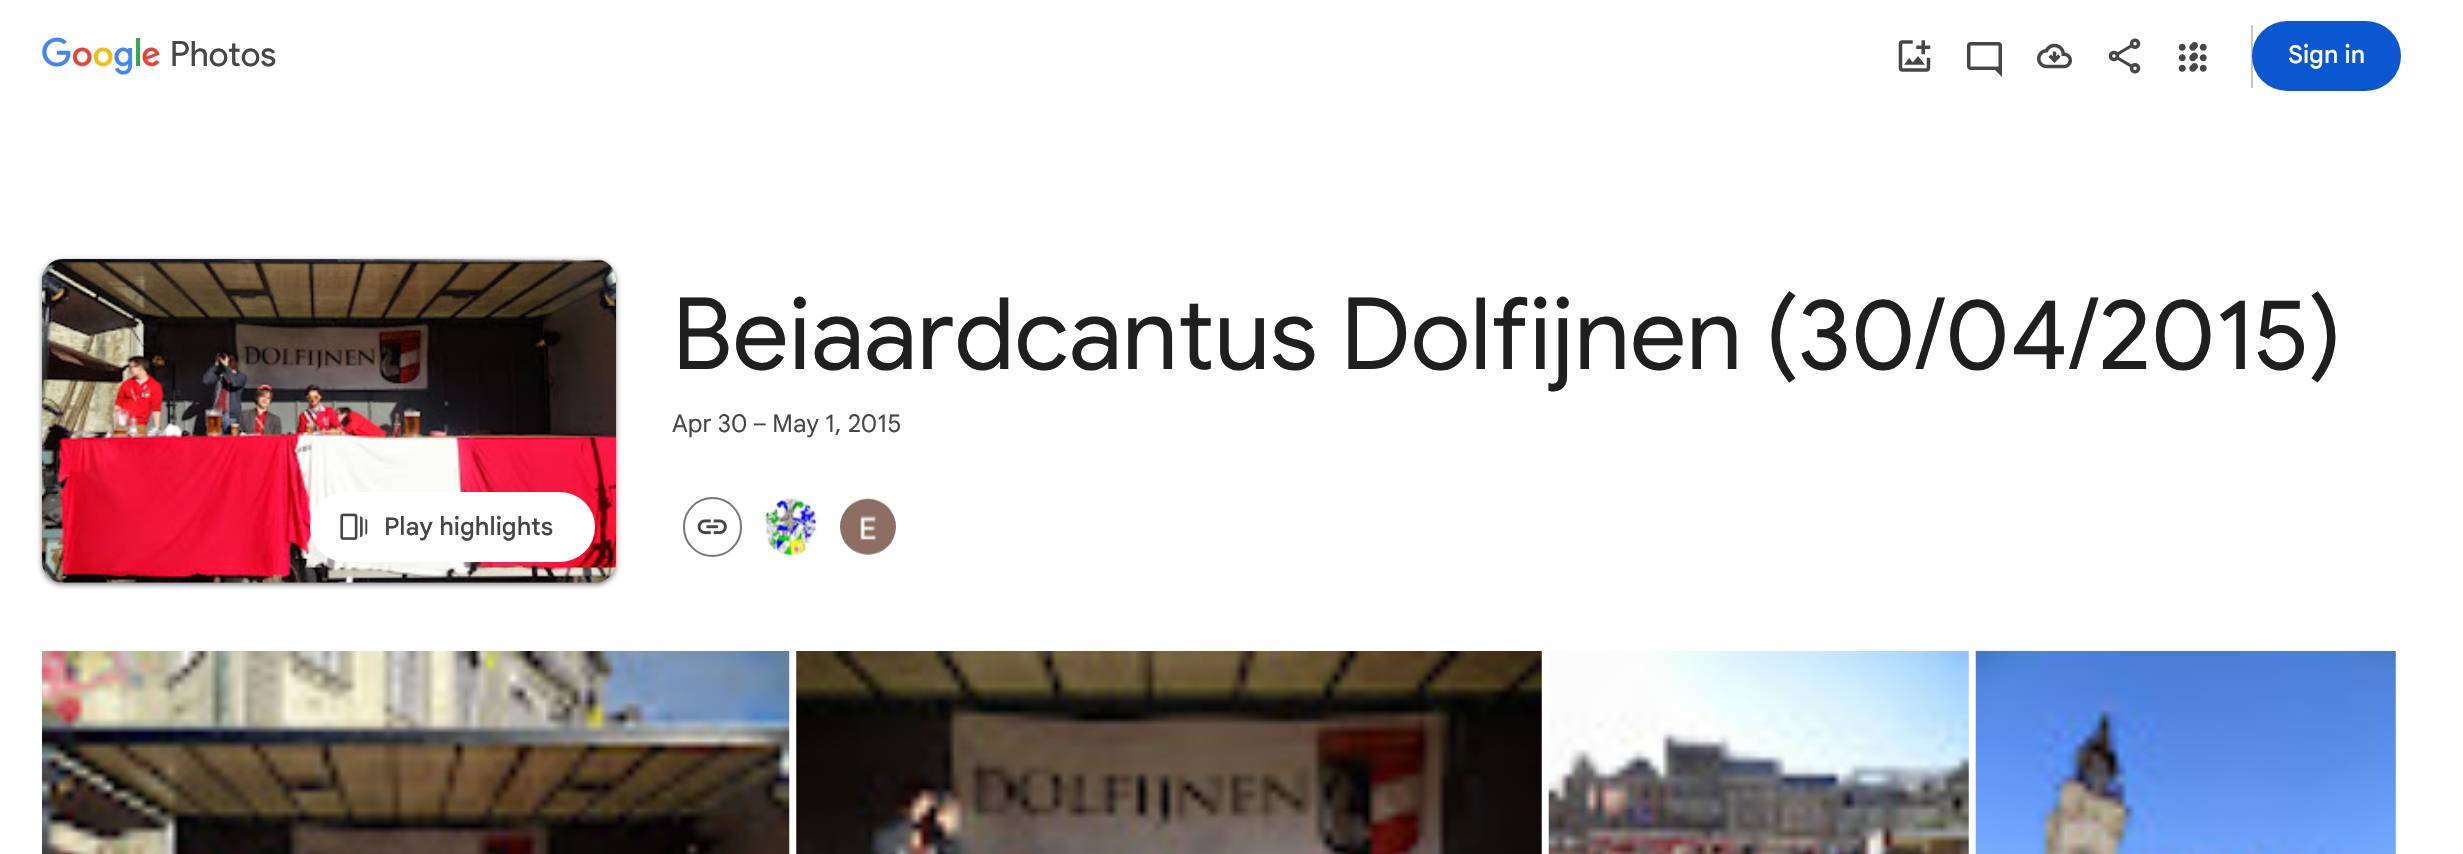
#include "include/core/SkBlurTypes.h"
#include "include/core/SkCanvas.h"
#include "include/core/SkData.h"
#include "include/core/SkFont.h"
#include "include/core/SkFontMgr.h"
#include "include/core/SkImage.h"
#include "include/core/SkMaskFilter.h"
#include "include/core/SkPaint.h"
#include "include/core/SkPathBuilder.h"
#include "include/core/SkTextBlob.h"
#include "include/effects/SkDashPathEffect.h"
#include "include/effects/SkGradientShader.h"
#include "include/utils/SkParsePath.h"

extern sk_sp<SkFontMgr> fontMgr;

static SkFont font(const char* family, int weight, float size, bool italic = false) {
    SkFontStyle style(weight, SkFontStyle::kNormal_Width,
        italic ? SkFontStyle::kItalic_Slant : SkFontStyle::kUpright_Slant);
    SkFont result(fontMgr->matchFamilyStyle(family, style), size);
    result.setSubpixel(true);
    return result;
}

static void drawLabel(SkCanvas* canvas, const char* s, float x, float y, const SkFont& font, SkColor color) {
    SkPaint ink(SkColor4f::FromColor(color));
    ink.setAntiAlias(true);
    canvas->drawString(s, x, y, font, ink);
}

static void fillRect(SkCanvas* canvas, float x, float y, float w, float h, SkColor color) {
    SkPaint ink(SkColor4f::FromColor(color));
    ink.setAntiAlias(true);
    canvas->drawRect(SkRect::MakeXYWH(x, y, w, h), ink);
}

static void fillRRect(SkCanvas* canvas, float x, float y, float w, float h, float radius, SkColor color) {
    SkPaint ink(SkColor4f::FromColor(color));
    ink.setAntiAlias(true);
    canvas->drawRoundRect(SkRect::MakeXYWH(x, y, w, h), radius, radius, ink);
}

static void drawPhoto(SkCanvas* canvas, const char* path, float x, float y, float w, float h) {
    auto image = SkImages::DeferredFromEncodedData(SkData::MakeFromFileName(path));
    canvas->drawImageRect(image, SkRect::MakeXYWH(x, y, w, h), SkSamplingOptions());
}

void draw(SkCanvas* canvas) {
    SkPaint paint;
    paint.setAntiAlias(true);
    canvas->clear(0xFFFFFFFF);
    drawPhoto(canvas, "assets/img1.png", 42, 37, 118, 38);
    SkFont font1 = font("Product Sans", 400, 35);
    drawLabel(canvas, "Photos", 170, 66, font1, 0xFF444746);
    drawPhoto(canvas, "assets/img2.png", 1898, 40, 33, 32);
    drawPhoto(canvas, "assets/img3.png", 1967, 42, 35, 35);
    drawPhoto(canvas, "assets/img4.png", 2037, 43, 35, 26);
    drawPhoto(canvas, "assets/img5.png", 2108, 38, 33, 36);
    drawPhoto(canvas, "assets/img6.png", 2191, 42, 7, 28);
    fillRect(canvas, 2251, 25, 2, 63, 0xFFC4C7C5);
    SkFont font2 = font("Google Sans", 400, 99.75f);
    drawLabel(canvas, "Beiaardcantus Dolfijnen (30/04/2015)", 672, 369, font2, 0xFF1F1F1F);
    SkFont font3 = font("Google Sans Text", 400, 24.5f);
    drawLabel(canvas, "Apr 30 – May 1, 2015", 672, 432, font3, 0xFF444746);
    paint.setStroke(true);
    paint.setStrokeWidth(2);
    paint.setColor(0xFF747775);
    canvas->drawRoundRect(SkRect::MakeXYWH(684, 498, 57, 58), 28.5f, 28.5f, paint);
    drawPhoto(canvas, "assets/img7.png", 697, 519, 30, 16);
    drawPhoto(canvas, "assets/img8.png", 763, 498, 56, 57);
    drawPhoto(canvas, "assets/img9.png", 840, 498, 56, 57);
    fillRRect(canvas, 42, 259, 574, 324, 21, 0xFFF8FAFD);
    paint.setStroke(false);
    paint.setColor(0x26000000);
    paint.setMaskFilter(SkMaskFilter::MakeBlur(kNormal_SkBlurStyle, 2.5f));
    canvas->drawRoundRect(SkRect::MakeXYWH(40, 259, 578, 327), 23, 23, paint);
    paint.setMaskFilter(nullptr);
    paint.setColor(0x4D000000);
    paint.setMaskFilter(SkMaskFilter::MakeBlur(kNormal_SkBlurStyle, 2));
    canvas->drawRoundRect(SkRect::MakeXYWH(42, 261, 574, 324), 21, 21, paint);
    paint.setMaskFilter(nullptr);
    drawPhoto(canvas, "assets/img10.png", 42, 259, 574, 324);
    fillRRect(canvas, 310, 492, 285, 70, 35, 0xFFFFFFFF);
    drawPhoto(canvas, "assets/img11.png", 340, 513, 28, 27);
    SkFont font4 = font("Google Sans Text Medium", 500, 24.5f);
    drawLabel(canvas, "Play highlights", 384, 535, font4, 0xFF444746);
    drawPhoto(canvas, "assets/img12.png", 42, 651, 748, 203);
    drawPhoto(canvas, "assets/img13.png", 796, 651, 746, 203);
    drawPhoto(canvas, "assets/img14.png", 1548, 651, 421, 203);
    drawPhoto(canvas, "assets/img15.png", 1975, 651, 421, 203);
    drawPhoto(canvas, "assets/img16.png", 2178, 43, 29, 29);
    fillRRect(canvas, 2252, 21, 149, 70, 35, 0xFF0B57D0);
    drawLabel(canvas, "Sign in", 2288, 63, font4, 0xFFFFFFFF);
}
